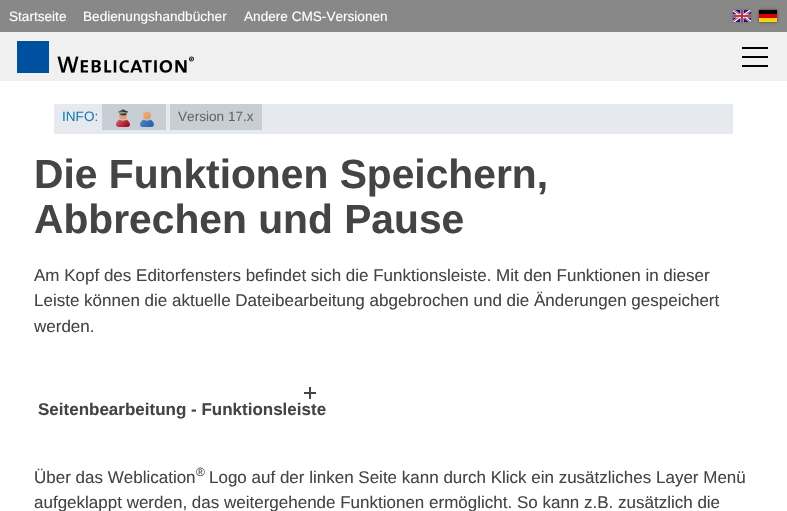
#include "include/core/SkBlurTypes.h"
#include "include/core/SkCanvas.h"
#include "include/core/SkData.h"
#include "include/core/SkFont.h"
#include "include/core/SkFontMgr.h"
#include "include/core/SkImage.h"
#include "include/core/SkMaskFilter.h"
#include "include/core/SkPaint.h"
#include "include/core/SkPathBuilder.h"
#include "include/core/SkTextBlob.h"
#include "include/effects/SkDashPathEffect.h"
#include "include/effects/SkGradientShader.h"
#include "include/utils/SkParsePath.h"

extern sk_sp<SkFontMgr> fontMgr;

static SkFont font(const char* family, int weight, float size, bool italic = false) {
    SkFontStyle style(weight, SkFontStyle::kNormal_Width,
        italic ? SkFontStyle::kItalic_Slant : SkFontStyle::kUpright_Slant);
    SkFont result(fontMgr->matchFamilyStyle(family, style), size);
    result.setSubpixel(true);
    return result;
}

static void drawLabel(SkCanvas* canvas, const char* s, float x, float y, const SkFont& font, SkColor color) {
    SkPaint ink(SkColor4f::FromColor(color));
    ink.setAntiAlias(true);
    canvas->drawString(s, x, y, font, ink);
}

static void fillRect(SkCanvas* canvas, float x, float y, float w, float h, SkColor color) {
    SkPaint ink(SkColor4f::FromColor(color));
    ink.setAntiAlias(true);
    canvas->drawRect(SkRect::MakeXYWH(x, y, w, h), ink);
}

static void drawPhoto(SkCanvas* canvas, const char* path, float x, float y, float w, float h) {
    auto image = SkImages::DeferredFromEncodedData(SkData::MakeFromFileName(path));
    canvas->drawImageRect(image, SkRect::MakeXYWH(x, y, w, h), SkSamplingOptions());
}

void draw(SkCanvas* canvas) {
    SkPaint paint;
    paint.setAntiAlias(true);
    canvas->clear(0xFFFFFFFF);
    fillRect(canvas, 0, 32, 787, 49, 0xFFF0F0F0);
    fillRect(canvas, 0, 0, 787, 32, 0xFF888888);
    SkFont font1 = font("Liberation Sans", 400, 13.6f);
    drawLabel(canvas, "Startseite", 9, 21, font1, 0xFFFFFFFF);
    drawLabel(canvas, "Bedienungshandbücher", 83, 21, font1, 0xFFFFFFFF);
    drawLabel(canvas, "Andere CMS-Versionen", 244, 21, font1, 0xFFFFFFFF);
    paint.setColor(0x33000000);
    paint.setMaskFilter(SkMaskFilter::MakeBlur(kNormal_SkBlurStyle, 1.5f));
    canvas->drawRect(SkRect::MakeXYWH(733, 10, 18, 12), paint);
    paint.setMaskFilter(nullptr);
    fillRect(canvas, 733, 10, 18, 12, 0xFFFFFFFF);
    drawPhoto(canvas, "assets/img1.png", 733, 10, 18, 12);
    paint.setColor(0x80000000);
    paint.setMaskFilter(SkMaskFilter::MakeBlur(kNormal_SkBlurStyle, 1.5f));
    canvas->drawRect(SkRect::MakeXYWH(759, 10, 18, 12), paint);
    paint.setMaskFilter(nullptr);
    fillRect(canvas, 759, 10, 18, 4, 0xFF000000);
    fillRect(canvas, 759, 14, 18, 4, 0xFFDD0000);
    fillRect(canvas, 759, 18, 18, 4, 0xFFFFCE0F);
    drawPhoto(canvas, "assets/img2.png", 17, 41, 177, 32);
    fillRect(canvas, 742, 47, 26, 2, 0xFF000000);
    fillRect(canvas, 742, 56, 26, 2, 0xFF000000);
    fillRect(canvas, 742, 65, 26, 2, 0xFF000000);
    fillRect(canvas, 54, 104, 679, 30, 0xFFE6EAEE);
    drawLabel(canvas, "INFO:", 62, 121, font1, 0xFF207CB5);
    fillRect(canvas, 102, 104, 64, 26, 0xFFC9CED4);
    drawPhoto(canvas, "assets/img3.png", 116, 109, 14, 18);
    drawPhoto(canvas, "assets/img4.png", 140, 111, 14, 16);
    fillRect(canvas, 170, 104, 92, 26, 0xFFC9CED4);
    drawLabel(canvas, "Version 17.x", 178, 121, font1, 0xFF666666);
    SkFont font2 = font("Liberation Sans", 700, 40.75f);
    drawLabel(canvas, "Die Funktionen Speichern,", 34, 188, font2, 0xFF444444);
    drawLabel(canvas, "Abbrechen und Pause", 34, 233, font2, 0xFF444444);
    SkFont font3 = font("Liberation Sans", 400, 17);
    drawLabel(canvas, "Am Kopf des Editorfensters befindet sich die Funktionsleiste. Mit den Funktionen in dieser", 34, 281, font3, 0xFF444444);
    drawLabel(canvas, "Leiste können die aktuelle Dateibearbeitung abgebrochen und die Änderungen gespeichert", 34, 306, font3, 0xFF444444);
    drawLabel(canvas, "werden.", 34, 332, font3, 0xFF444444);
    SkFont font4 = font("Liberation Sans", 700, 17);
    drawLabel(canvas, "Seitenbearbeitung - Funktionsleiste", 38, 415, font4, 0xFF444444);
    paint.setColor(0x80FFFFFF);
    canvas->drawCircle(310, 393, 12, paint);
    fillRect(canvas, 304, 392, 12, 2, 0xFF444444);
    fillRect(canvas, 309, 387, 2, 12, 0xFF444444);
    drawLabel(canvas, "Über das Weblication", 34, 483, font3, 0xFF444444);
    SkFont font5 = font("Liberation Sans", 400, 12);
    drawLabel(canvas, "®", 196, 476, font5, 0xFF444444);
    drawLabel(canvas, "Logo auf der linken Seite kann durch Klick ein zusätzliches Layer Menü", 209, 483, font3, 0xFF444444);
    drawLabel(canvas, "aufgeklappt werden, das weitergehende Funktionen ermöglicht. So kann z.B. zusätzlich die", 34, 508, font3, 0xFF444444);
}
